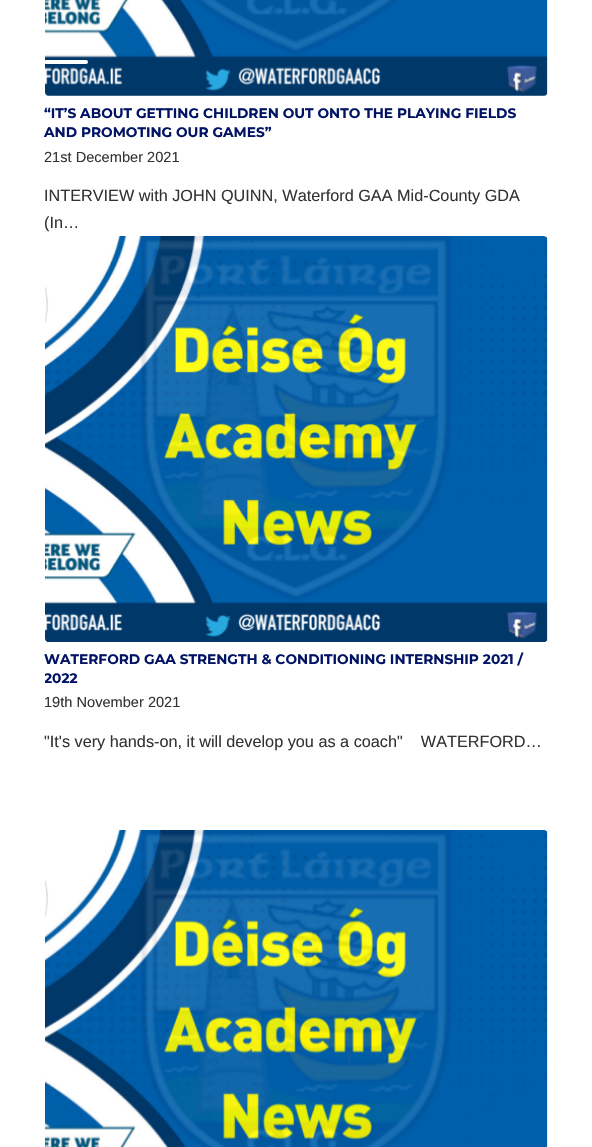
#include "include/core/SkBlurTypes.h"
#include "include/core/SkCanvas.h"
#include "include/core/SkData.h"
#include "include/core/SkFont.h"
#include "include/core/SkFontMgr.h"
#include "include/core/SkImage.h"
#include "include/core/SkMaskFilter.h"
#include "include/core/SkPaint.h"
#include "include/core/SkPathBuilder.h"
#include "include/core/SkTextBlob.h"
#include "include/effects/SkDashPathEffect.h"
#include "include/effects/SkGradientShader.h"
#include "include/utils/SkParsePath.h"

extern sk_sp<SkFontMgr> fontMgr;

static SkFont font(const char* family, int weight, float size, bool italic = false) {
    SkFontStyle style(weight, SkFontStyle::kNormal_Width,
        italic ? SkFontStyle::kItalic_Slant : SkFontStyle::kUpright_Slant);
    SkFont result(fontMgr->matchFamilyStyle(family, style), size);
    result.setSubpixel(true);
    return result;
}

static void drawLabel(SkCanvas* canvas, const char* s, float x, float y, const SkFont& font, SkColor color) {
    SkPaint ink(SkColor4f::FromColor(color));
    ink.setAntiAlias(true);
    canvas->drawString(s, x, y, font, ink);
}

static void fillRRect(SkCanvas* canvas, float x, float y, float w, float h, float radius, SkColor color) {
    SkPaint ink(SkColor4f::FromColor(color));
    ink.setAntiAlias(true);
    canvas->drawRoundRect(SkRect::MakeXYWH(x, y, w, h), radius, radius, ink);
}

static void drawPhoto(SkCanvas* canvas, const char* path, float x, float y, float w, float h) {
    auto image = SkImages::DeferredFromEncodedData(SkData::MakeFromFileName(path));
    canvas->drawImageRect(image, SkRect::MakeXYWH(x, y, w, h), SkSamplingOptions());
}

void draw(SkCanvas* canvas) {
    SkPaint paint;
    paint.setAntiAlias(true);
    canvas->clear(0xFFFFFFFF);
    drawPhoto(canvas, "assets/img1.png", 45, 0, 503, 96);
    fillRRect(canvas, 44, 60, 44, 4, 2, 0xFFFFFFFF);
    SkFont font1 = font("Montserrat", 700, 13.75f);
    drawLabel(canvas, "“IT’S ABOUT GETTING CHILDREN OUT ONTO THE PLAYING FIELDS", 44, 118, font1, 0xFF011364);
    drawLabel(canvas, "AND PROMOTING OUR GAMES”", 44, 137, font1, 0xFF011364);
    SkFont font2 = font("Liberation Sans", 400, 14.6f);
    drawLabel(canvas, "21st December 2021", 44, 162, font2, 0xFF333333);
    SkFont font3 = font("Liberation Sans", 400, 16.25f);
    drawLabel(canvas, "INTERVIEW with JOHN QUINN, Waterford GAA Mid-County GDA", 44, 201, font3, 0xFF333333);
    drawLabel(canvas, "(In…", 44, 228, font3, 0xFF333333);
    drawPhoto(canvas, "assets/img2.png", 45, 236, 503, 406);
    drawLabel(canvas, "WATERFORD GAA STRENGTH & CONDITIONING INTERNSHIP 2021 /", 44, 664, font1, 0xFF011364);
    canvas->save();
    canvas->clipRect(SkRect::MakeXYWH(45, 0, 503, 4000));
    drawLabel(canvas, "2022", 44, 683, font1, 0xFF011364);
    canvas->restore();
    drawLabel(canvas, "19th November 2021", 44, 707, font2, 0xFF333333);
    drawLabel(canvas, "\"It's very hands-on, it will develop you as a coach\"    WATERFORD…", 44, 747, font3, 0xFF333333);
    drawPhoto(canvas, "assets/img3.png", 45, 830, 503, 317);
}
